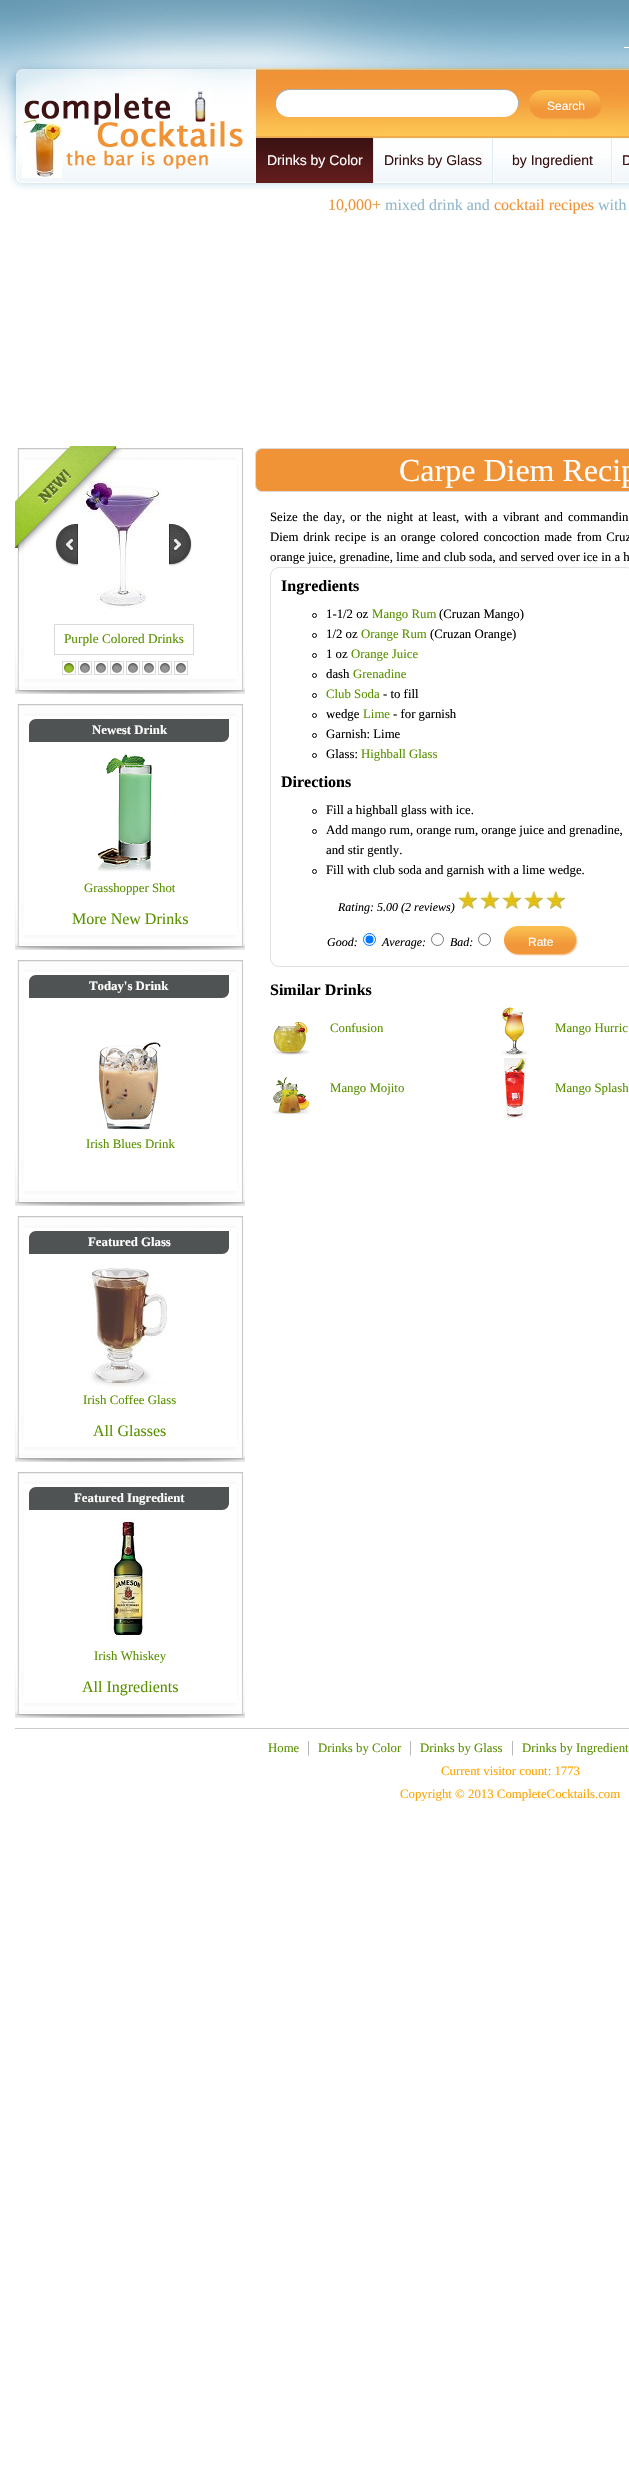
#include "include/core/SkBlurTypes.h"
#include "include/core/SkCanvas.h"
#include "include/core/SkData.h"
#include "include/core/SkFont.h"
#include "include/core/SkFontMgr.h"
#include "include/core/SkImage.h"
#include "include/core/SkMaskFilter.h"
#include "include/core/SkPaint.h"
#include "include/core/SkPathBuilder.h"
#include "include/core/SkTextBlob.h"
#include "include/effects/SkDashPathEffect.h"
#include "include/effects/SkGradientShader.h"
#include "include/utils/SkParsePath.h"

extern sk_sp<SkFontMgr> fontMgr;

static SkFont font(const char* family, int weight, float size, bool italic = false) {
    SkFontStyle style(weight, SkFontStyle::kNormal_Width,
        italic ? SkFontStyle::kItalic_Slant : SkFontStyle::kUpright_Slant);
    SkFont result(fontMgr->matchFamilyStyle(family, style), size);
    result.setSubpixel(true);
    return result;
}

static void drawLabel(SkCanvas* canvas, const char* s, float x, float y, const SkFont& font, SkColor color) {
    SkPaint ink(SkColor4f::FromColor(color));
    ink.setAntiAlias(true);
    canvas->drawString(s, x, y, font, ink);
}

static void drawTracked(SkCanvas* canvas, const char* s, float x, float y, const SkFont& font, const SkPaint& ink, float letter, float word) {
    std::vector<SkGlyphID> glyphs(font.countText(s, strlen(s), SkTextEncoding::kUTF8));
    std::vector<float> xs(glyphs.size());
    font.textToGlyphs(s, strlen(s), SkTextEncoding::kUTF8, glyphs);
    font.getXPos(glyphs, xs, x);
    float extra = 0;
    for (size_t i = 0; i < glyphs.size(); i++) {
        xs[i] += extra;
        extra += letter + word * (glyphs[i] == font.unicharToGlyph(' '));
    }
    canvas->drawTextBlob(SkTextBlob::MakeFromPosHGlyphs(glyphs, xs, y, font), 0, 0, ink);
}

static void fillRect(SkCanvas* canvas, float x, float y, float w, float h, SkColor color) {
    SkPaint ink(SkColor4f::FromColor(color));
    ink.setAntiAlias(true);
    canvas->drawRect(SkRect::MakeXYWH(x, y, w, h), ink);
}

static void drawPhoto(SkCanvas* canvas, const char* path, float x, float y, float w, float h) {
    auto image = SkImages::DeferredFromEncodedData(SkData::MakeFromFileName(path));
    canvas->drawImageRect(image, SkRect::MakeXYWH(x, y, w, h), SkSamplingOptions());
}

static SkPath parsePath(const char* data, bool evenOdd = false) {
    SkPath result = *SkParsePath::FromSVGString(data);
    if (evenOdd) result.setFillType(SkPathFillType::kEvenOdd);
    return result;
}

void draw(SkCanvas* canvas) {
    SkPaint paint;
    paint.setAntiAlias(true);
    canvas->clear(0xFFFFFFFF);
    drawPhoto(canvas, "assets/img1.png", 0, 0, 629, 190);
    fillRect(canvas, 624, 47, 5, 1, 0xFFFFFFFF);
    drawPhoto(canvas, "assets/img2.png", 22, 90, 221, 88);
    drawPhoto(canvas, "assets/img3.png", 275, 89, 244, 28);
    drawPhoto(canvas, "assets/img4.png", 529, 90, 73, 30);
    SkFont font1 = font("Liberation Sans", 400, 12);
    drawLabel(canvas, "Search", 547, 110, font1, 0xFFFFFFFF);
    drawPhoto(canvas, "assets/img5.png", 373, 138, 2, 45);
    drawPhoto(canvas, "assets/img6.png", 256, 138, 117, 45);
    SkFont font2 = font("Liberation Sans", 400, 14);
    drawLabel(canvas, "Drinks by Color", 267, 165, font2, 0xFFFFFFFF);
    drawPhoto(canvas, "assets/img5.png", 492, 138, 2, 45);
    drawLabel(canvas, "Drinks by Glass", 384, 165, font2, 0xFF391111);
    drawPhoto(canvas, "assets/img5.png", 611, 138, 2, 45);
    drawLabel(canvas, "by Ingredient", 512, 165, font2, 0xFF391111);
    drawLabel(canvas, "D", 622, 165, font2, 0xFF391111);
    SkFont font3 = font("Liberation Serif", 400, 16);
    drawLabel(canvas, "10,000+", 328, 210, font3, 0xFFF09236);
    drawLabel(canvas, "mixed drink and", 385, 210, font3, 0xFF92B8CA);
    drawLabel(canvas, "cocktail recipes", 494, 210, font3, 0xFFF09236);
    drawLabel(canvas, "with", 598, 210, font3, 0xFF92B8CA);
    drawPhoto(canvas, "assets/img7.png", 15, 448, 230, 246);
    drawPhoto(canvas, "assets/img9.png", 55, 524, 23, 42);
    drawPhoto(canvas, "assets/img11.png", 80, 477, 81, 132);
    drawPhoto(canvas, "assets/img8.png", 15, 446, 107, 107);
    drawPhoto(canvas, "assets/img10.png", 169, 524, 23, 42);
    paint.setStroke(true);
    paint.setStrokeWidth(1);
    paint.setColor(0xFFDADADA);
    canvas->drawRect(SkRect::MakeXYWH(54.5f, 624.5f, 139, 30), paint);
    SkFont font4 = font("Liberation Serif", 400, 13.25f);
    drawLabel(canvas, "Purple Colored Drinks", 64, 643, font4, 0xFF599100);
    canvas->drawRect(SkRect::MakeXYWH(62.5f, 661.5f, 13, 13), paint);
    drawPhoto(canvas, "assets/img12.png", 64, 663, 10, 10);
    canvas->drawRect(SkRect::MakeXYWH(78.5f, 661.5f, 13, 13), paint);
    drawPhoto(canvas, "assets/img13.png", 80, 663, 10, 10);
    canvas->drawRect(SkRect::MakeXYWH(94.5f, 661.5f, 13, 13), paint);
    drawPhoto(canvas, "assets/img13.png", 96, 663, 10, 10);
    canvas->drawRect(SkRect::MakeXYWH(110.5f, 661.5f, 13, 13), paint);
    drawPhoto(canvas, "assets/img13.png", 112, 663, 10, 10);
    canvas->drawRect(SkRect::MakeXYWH(126.5f, 661.5f, 13, 13), paint);
    drawPhoto(canvas, "assets/img13.png", 128, 663, 10, 10);
    canvas->drawRect(SkRect::MakeXYWH(142.5f, 661.5f, 13, 13), paint);
    drawPhoto(canvas, "assets/img13.png", 144, 663, 10, 10);
    canvas->drawRect(SkRect::MakeXYWH(158.5f, 661.5f, 13, 13), paint);
    drawPhoto(canvas, "assets/img13.png", 160, 663, 10, 10);
    canvas->drawRect(SkRect::MakeXYWH(174.5f, 661.5f, 13, 13), paint);
    drawPhoto(canvas, "assets/img13.png", 176, 663, 10, 10);
    drawPhoto(canvas, "assets/img7.png", 15, 704, 230, 246);
    paint.setStroke(false);
    paint.setColor(0xFF505353);
    canvas->drawPath(parsePath("M36 719H229V735C229 739 226 742 222 742H29V726C29 722 32 719 36 719Z"), paint);
    SkFont font5 = font("Liberation Serif", 700, 12.8f);
    drawLabel(canvas, "Newest Drink", 92, 734, font5, 0xFFFFFFFF);
    drawPhoto(canvas, "assets/img14.png", 97, 754, 55, 118);
    SkFont font6 = font("Liberation Serif", 400, 12.8f);
    drawLabel(canvas, "Grasshopper Shot", 84, 892, font6, 0xFF599100);
    drawLabel(canvas, "More New Drinks", 72, 924, font3, 0xFF599100);
    drawPhoto(canvas, "assets/img7.png", 15, 960, 230, 246);
    canvas->drawPath(parsePath("M36 975H229V991C229 995 226 998 222 998H29V982C29 978 32 975 36 975Z"), paint);
    drawLabel(canvas, "Today's Drink", 89, 990, font5, 0xFFFFFFFF);
    drawPhoto(canvas, "assets/img15.png", 99, 1042, 62, 88);
    drawLabel(canvas, "Irish Blues Drink", 86, 1148, font6, 0xFF599100);
    drawPhoto(canvas, "assets/img7.png", 15, 1216, 230, 246);
    canvas->drawPath(parsePath("M36 1231H229V1247C229 1251 226 1254 222 1254H29V1238C29 1234 32 1231 36 1231Z"), paint);
    drawLabel(canvas, "Featured Glass", 88, 1246, font5, 0xFFFFFFFF);
    drawPhoto(canvas, "assets/img16.png", 88, 1268, 79, 121);
    drawLabel(canvas, "Irish Coffee Glass", 83, 1404, font6, 0xFF599100);
    drawLabel(canvas, "All Glasses", 93, 1436, font3, 0xFF599100);
    drawPhoto(canvas, "assets/img7.png", 15, 1472, 230, 246);
    canvas->drawPath(parsePath("M36 1487H229V1503C229 1507 226 1510 222 1510H29V1494C29 1490 32 1487 36 1487Z"), paint);
    drawLabel(canvas, "Featured Ingredient", 74, 1502, font5, 0xFFFFFFFF);
    drawPhoto(canvas, "assets/img17.png", 103, 1518, 46, 120);
    drawLabel(canvas, "Irish Whiskey", 94, 1660, font6, 0xFF599100);
    drawLabel(canvas, "All Ingredients", 82, 1692, font3, 0xFF599100);
    paint.setColor(0xFFF09236);
    canvas->drawRoundRect(SkRect::MakeXYWH(255.5f, 448.5f, 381, 43), 6.5f, 6.5f, paint);
    paint.setStroke(true);
    paint.setColor(0xFFDADADA);
    canvas->drawRoundRect(SkRect::MakeXYWH(255.5f, 448.5f, 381, 43), 6.5f, 6.5f, paint);
    SkFont font7 = font("Liberation Serif", 400, 32);
    drawLabel(canvas, "Carpe Diem Recip", 399, 481, font7, 0xFFFFFFFF);
    paint.setStroke(false);
    paint.setColor(0xFF000000);
    drawTracked(canvas, "Seize the day, or the night at least, with a vibrant and commandin", 270, 521, font6, paint, 0, 1.9f);
    drawTracked(canvas, "Diem drink recipe is an orange colored concoction made from Cruz", 270, 541, font6, paint, 0, 1.5f);
    drawLabel(canvas, "orange juice, grenadine, lime and club soda, and served over ice in a h", 270, 561, font6, 0xFF000000);
    paint.setStroke(true);
    paint.setColor(0xFFE0E0E0);
    canvas->drawRoundRect(SkRect::MakeXYWH(270.5f, 567.5f, 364, 399), 8.5f, 8.5f, paint);
    SkFont font8 = font("Liberation Serif", 700, 16);
    drawLabel(canvas, "Ingredients", 281, 591, font8, 0xFF000000);
    paint.setColor(0xFF000000);
    canvas->drawCircle(314.5f, 615.5f, 2, paint);
    drawLabel(canvas, "1-1/2 oz", 326, 618, font6, 0xFF000000);
    drawLabel(canvas, "Mango Rum", 372, 618, font6, 0xFF599100);
    drawLabel(canvas, "(Cruzan Mango)", 439, 618, font6, 0xFF000000);
    canvas->drawCircle(314.5f, 635.5f, 2, paint);
    drawLabel(canvas, "1/2 oz", 326, 638, font6, 0xFF000000);
    drawLabel(canvas, "Orange Rum", 361, 638, font6, 0xFF599100);
    drawLabel(canvas, "(Cruzan Orange)", 430, 638, font6, 0xFF000000);
    canvas->drawCircle(314.5f, 655.5f, 2, paint);
    drawLabel(canvas, "1 oz", 326, 658, font6, 0xFF000000);
    drawLabel(canvas, "Orange Juice", 351, 658, font6, 0xFF599100);
    canvas->drawCircle(314.5f, 675.5f, 2, paint);
    drawLabel(canvas, "dash", 326, 678, font6, 0xFF000000);
    drawLabel(canvas, "Grenadine", 353, 678, font6, 0xFF599100);
    canvas->drawCircle(314.5f, 695.5f, 2, paint);
    drawLabel(canvas, "Club Soda", 326, 698, font6, 0xFF599100);
    drawLabel(canvas, "- to fill", 383, 698, font6, 0xFF000000);
    canvas->drawCircle(314.5f, 715.5f, 2, paint);
    drawLabel(canvas, "wedge", 326, 718, font6, 0xFF000000);
    drawLabel(canvas, "Lime", 363, 718, font6, 0xFF599100);
    drawLabel(canvas, "- for garnish", 393, 718, font6, 0xFF000000);
    canvas->drawCircle(314.5f, 735.5f, 2, paint);
    drawLabel(canvas, "Garnish: Lime", 326, 738, font6, 0xFF000000);
    canvas->drawCircle(314.5f, 755.5f, 2, paint);
    drawLabel(canvas, "Glass:", 326, 758, font6, 0xFF000000);
    drawLabel(canvas, "Highball Glass", 361, 758, font6, 0xFF599100);
    drawLabel(canvas, "Directions", 281, 787, font8, 0xFF000000);
    canvas->drawCircle(314.5f, 811.5f, 2, paint);
    drawLabel(canvas, "Fill a highball glass with ice.", 326, 814, font6, 0xFF000000);
    canvas->drawCircle(314.5f, 831.5f, 2, paint);
    drawLabel(canvas, "Add mango rum, orange rum, orange juice and grenadine,", 326, 834, font6, 0xFF000000);
    drawLabel(canvas, "and stir gently.", 326, 854, font6, 0xFF000000);
    canvas->drawCircle(314.5f, 871.5f, 2, paint);
    drawLabel(canvas, "Fill with club soda and garnish with a lime wedge.", 326, 874, font6, 0xFF000000);
    SkFont font9 = font("Liberation Serif", 400, 12, true);
    drawLabel(canvas, "Rating: 5.00 (2 reviews)", 338, 911, font9, 0xFF000000);
    drawPhoto(canvas, "assets/img18.png", 457, 891, 21, 19);
    drawPhoto(canvas, "assets/img18.png", 479, 891, 21, 19);
    drawPhoto(canvas, "assets/img18.png", 501, 891, 21, 19);
    drawPhoto(canvas, "assets/img18.png", 523, 891, 21, 19);
    drawPhoto(canvas, "assets/img18.png", 545, 891, 21, 19);
    drawLabel(canvas, "Good:", 327, 946, font9, 0xFF000000);
    paint.setColor(0xFF0075FF);
    canvas->drawCircle(369.5f, 939.5f, 6, paint);
    paint.setStroke(false);
    canvas->drawCircle(369.5f, 939.5f, 4, paint);
    drawLabel(canvas, "Average:", 382, 946, font9, 0xFF000000);
    paint.setStroke(true);
    paint.setColor(0xFF767676);
    canvas->drawCircle(437.5f, 939.5f, 6, paint);
    drawLabel(canvas, "Bad:", 450, 946, font9, 0xFF000000);
    canvas->drawCircle(484.5f, 939.5f, 6, paint);
    drawPhoto(canvas, "assets/img19.png", 504, 926, 74, 30);
    drawLabel(canvas, "Rate", 528, 946, font1, 0xFFFFFFFF);
    drawLabel(canvas, "Similar Drinks", 270, 995, font8, 0xFF000000);
    drawPhoto(canvas, "assets/img20.png", 272, 1013, 38, 42);
    drawLabel(canvas, "Confusion", 330, 1032, font6, 0xFF599100);
    drawPhoto(canvas, "assets/img21.png", 501, 1005, 28, 51);
    drawLabel(canvas, "Mango Hurric", 555, 1032, font6, 0xFF599100);
    drawPhoto(canvas, "assets/img22.png", 271, 1077, 39, 38);
    drawLabel(canvas, "Mango Mojito", 330, 1092, font6, 0xFF599100);
    drawPhoto(canvas, "assets/img23.png", 504, 1058, 22, 60);
    drawLabel(canvas, "Mango Splash", 555, 1092, font6, 0xFF599100);
    fillRect(canvas, 15, 1728, 614, 1, 0xFFCACACA);
    drawLabel(canvas, "Home", 268, 1752, font6, 0xFF599100);
    drawLabel(canvas, "|", 307, 1752, font3, 0xFFACACAC);
    drawLabel(canvas, "Drinks by Color", 318, 1752, font6, 0xFF599100);
    drawLabel(canvas, "|", 409, 1752, font3, 0xFFACACAC);
    drawLabel(canvas, "Drinks by Glass", 420, 1752, font6, 0xFF599100);
    drawLabel(canvas, "|", 511, 1752, font3, 0xFFACACAC);
    drawLabel(canvas, "Drinks by Ingredient", 522, 1752, font6, 0xFF599100);
    drawLabel(canvas, "Current visitor count: 1773", 441, 1775, font6, 0xFFFFA500);
    drawLabel(canvas, "Copyright © 2013 CompleteCocktails.com", 400, 1798, font6, 0xFFFFA500);
}
